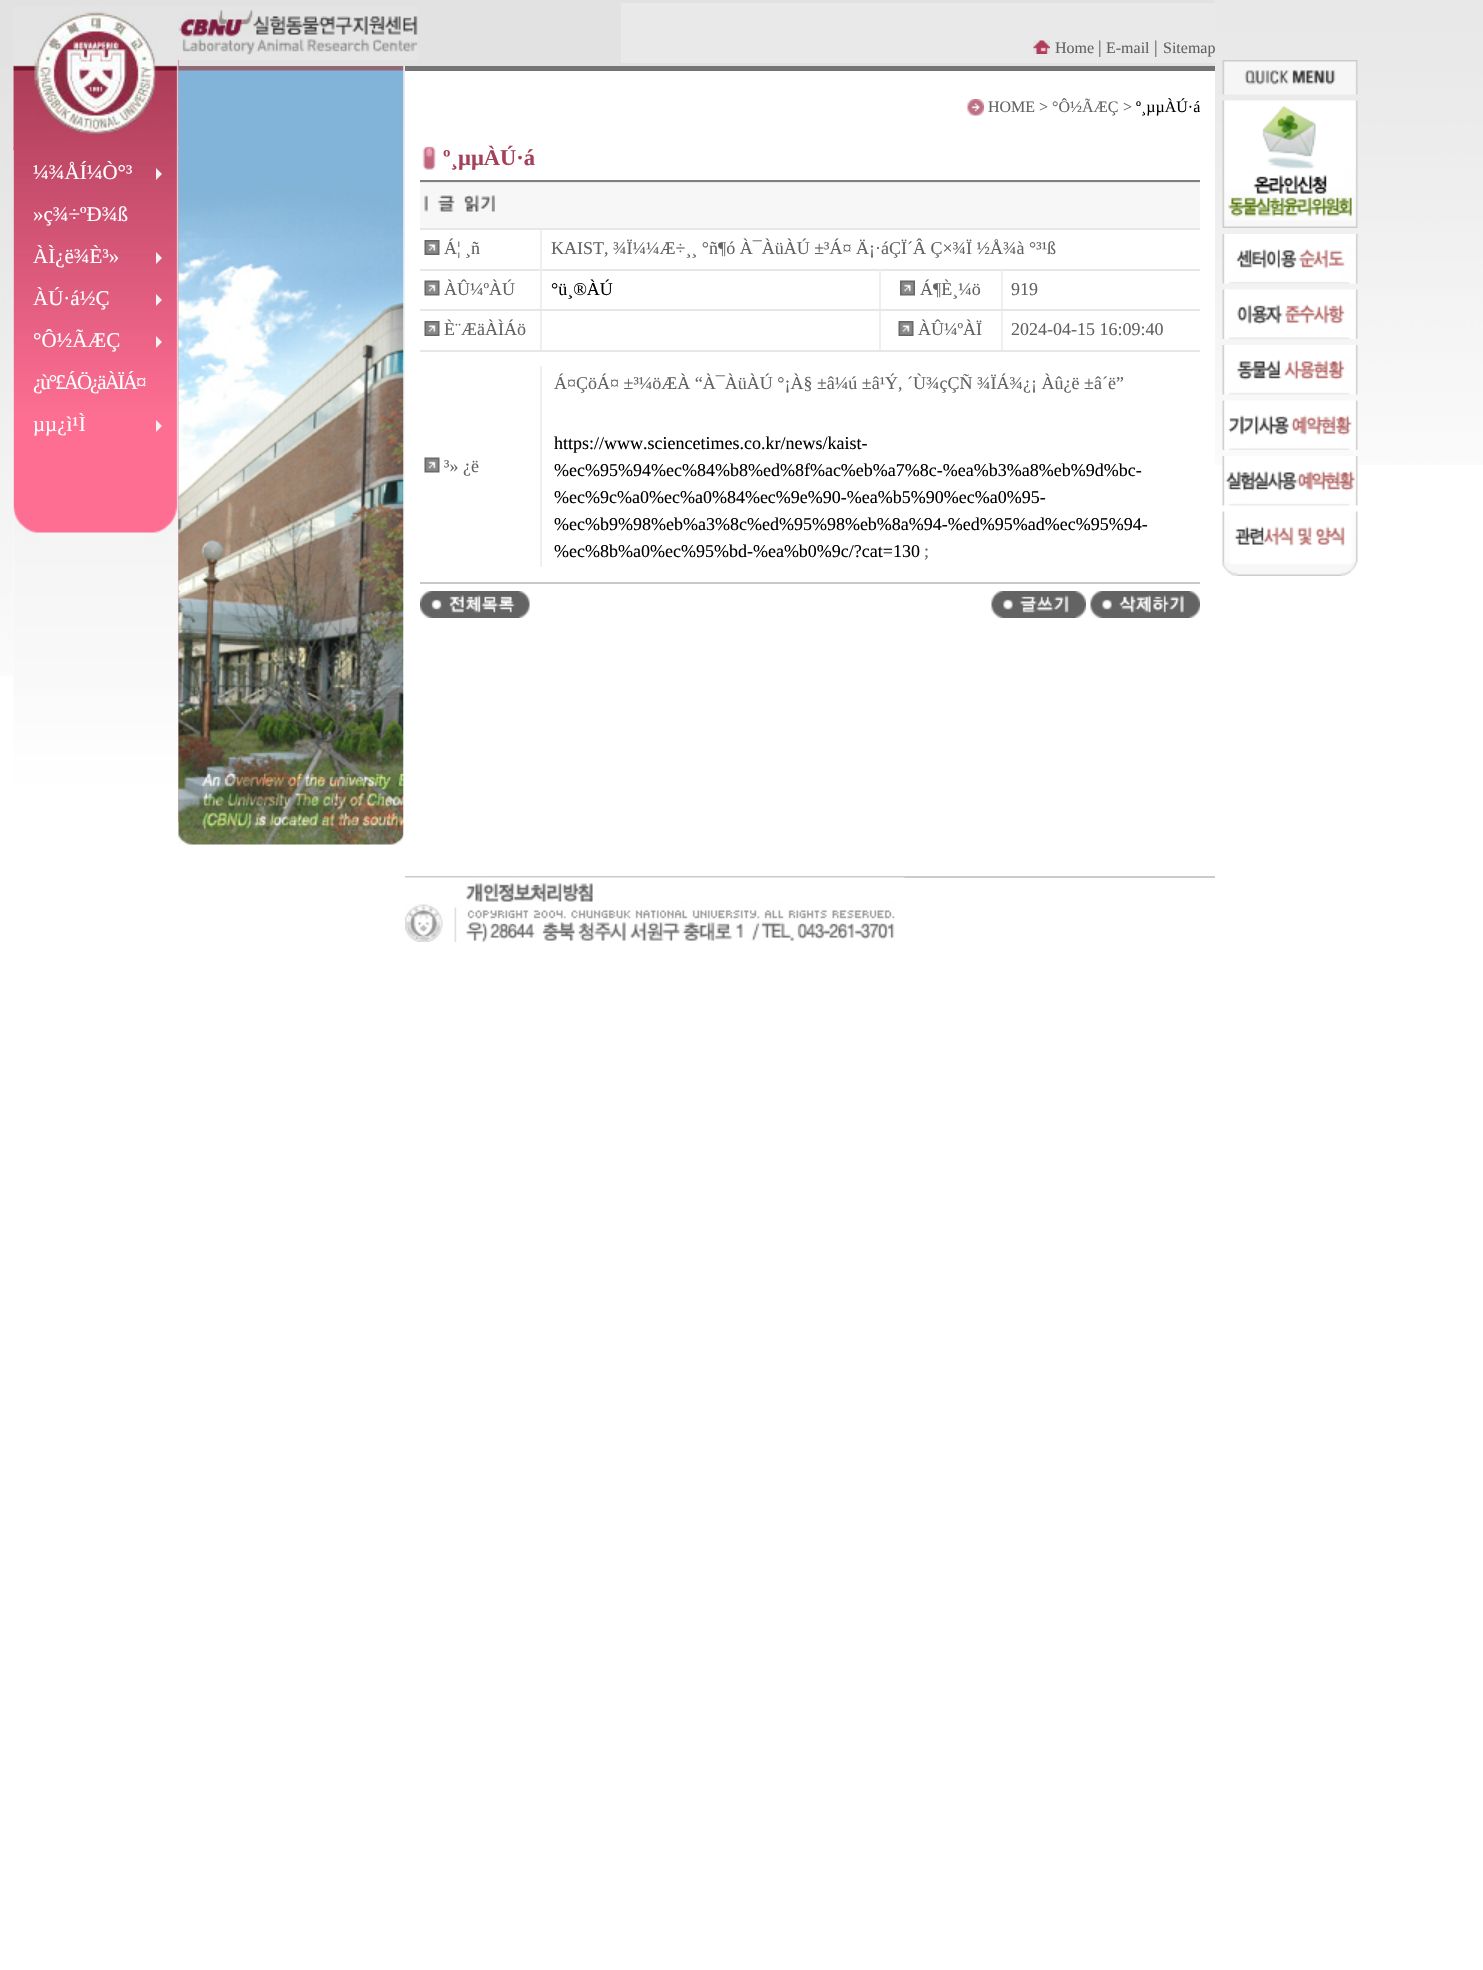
#include "include/core/SkBlurTypes.h"
#include "include/core/SkCanvas.h"
#include "include/core/SkData.h"
#include "include/core/SkFont.h"
#include "include/core/SkFontMgr.h"
#include "include/core/SkImage.h"
#include "include/core/SkMaskFilter.h"
#include "include/core/SkPaint.h"
#include "include/core/SkPathBuilder.h"
#include "include/core/SkTextBlob.h"
#include "include/effects/SkDashPathEffect.h"
#include "include/effects/SkGradientShader.h"
#include "include/utils/SkParsePath.h"

extern sk_sp<SkFontMgr> fontMgr;

static SkFont font(const char* family, int weight, float size, bool italic = false) {
    SkFontStyle style(weight, SkFontStyle::kNormal_Width,
        italic ? SkFontStyle::kItalic_Slant : SkFontStyle::kUpright_Slant);
    SkFont result(fontMgr->matchFamilyStyle(family, style), size);
    result.setSubpixel(true);
    return result;
}

static void drawLabel(SkCanvas* canvas, const char* s, float x, float y, const SkFont& font, SkColor color) {
    SkPaint ink(SkColor4f::FromColor(color));
    ink.setAntiAlias(true);
    canvas->drawString(s, x, y, font, ink);
}

static void drawTracked(SkCanvas* canvas, const char* s, float x, float y, const SkFont& font, const SkPaint& ink, float letter, float word) {
    std::vector<SkGlyphID> glyphs(font.countText(s, strlen(s), SkTextEncoding::kUTF8));
    std::vector<float> xs(glyphs.size());
    font.textToGlyphs(s, strlen(s), SkTextEncoding::kUTF8, glyphs);
    font.getXPos(glyphs, xs, x);
    float extra = 0;
    for (size_t i = 0; i < glyphs.size(); i++) {
        xs[i] += extra;
        extra += letter + word * (glyphs[i] == font.unicharToGlyph(' '));
    }
    canvas->drawTextBlob(SkTextBlob::MakeFromPosHGlyphs(glyphs, xs, y, font), 0, 0, ink);
}

static void fillRect(SkCanvas* canvas, float x, float y, float w, float h, SkColor color) {
    SkPaint ink(SkColor4f::FromColor(color));
    ink.setAntiAlias(true);
    canvas->drawRect(SkRect::MakeXYWH(x, y, w, h), ink);
}

static void drawPhoto(SkCanvas* canvas, const char* path, float x, float y, float w, float h) {
    auto image = SkImages::DeferredFromEncodedData(SkData::MakeFromFileName(path));
    canvas->drawImageRect(image, SkRect::MakeXYWH(x, y, w, h), SkSamplingOptions());
}

static SkPath parsePath(const char* data, bool evenOdd = false) {
    SkPath result = *SkParsePath::FromSVGString(data);
    if (evenOdd) result.setFillType(SkPathFillType::kEvenOdd);
    return result;
}

void draw(SkCanvas* canvas) {
    SkPaint paint;
    paint.setAntiAlias(true);
    canvas->clear(0xFFFFFFFF);
    fillRect(canvas, 0, 0, 1215, 66, 0xFFE2E2E2);
    drawPhoto(canvas, "assets/img1.png", 178, 6, 240, 54);
    fillRect(canvas, 621, 3, 594, 60, 0xFFE9E9E9);
    drawPhoto(canvas, "assets/img2.png", 1033, 40, 17, 14);
    SkFont font1 = font("Liberation Serif", 400, 16);
    drawLabel(canvas, "Home", 1055, 53, font1, 0xFF626262);
    SkFont font2 = font("Liberation Serif", 400, 18);
    drawLabel(canvas, "|", 1098, 53, font2, 0xFF626262);
    drawLabel(canvas, "E-mail", 1106, 53, font1, 0xFF626262);
    drawLabel(canvas, "|", 1154, 53, font2, 0xFF626262);
    drawLabel(canvas, "Sitemap", 1163, 53, font1, 0xFF626262);
    drawPhoto(canvas, "assets/img3.png", 1215, 0, 268, 465);
    drawPhoto(canvas, "assets/img4.png", 1222, 60, 136, 35);
    drawPhoto(canvas, "assets/img5.png", 1222, 100, 136, 128);
    drawPhoto(canvas, "assets/img6.png", 1222, 234, 136, 50);
    drawPhoto(canvas, "assets/img7.png", 1222, 289, 136, 50);
    drawPhoto(canvas, "assets/img8.png", 1222, 345, 136, 50);
    drawPhoto(canvas, "assets/img9.png", 1222, 400, 136, 50);
    drawPhoto(canvas, "assets/img10.png", 1222, 456, 136, 50);
    drawPhoto(canvas, "assets/img11.png", 1222, 511, 136, 65);
    fillRect(canvas, 178, 60, 1, 762, 0xFFC34E69);
    drawPhoto(canvas, "assets/img14.png", 13, 147, 166, 675);
    drawPhoto(canvas, "assets/img12.png", 0, 66, 14, 610);
    drawPhoto(canvas, "assets/img13.png", 13, 6, 166, 144);
    SkFont font3 = font("Liberation Serif", 400, 21);
    drawLabel(canvas, "¼¾ÅÍ¼Ò°³", 33, 179, font3, 0xFFFFFFFF);
    paint.setColor(0xFFF2F2F2);
    canvas->drawPath(parsePath("M156 180V168L162 174Z"), paint);
    drawLabel(canvas, "»ç¾÷ºÐ¾ß", 33, 221, font3, 0xFFFFFFFF);
    drawLabel(canvas, "ÀÌ¿ë¾È³»", 33, 263, font3, 0xFFFFFFFF);
    canvas->drawPath(parsePath("M156 264V252L162 258Z"), paint);
    drawLabel(canvas, "ÀÚ·á½Ç", 33, 305, font3, 0xFFFFFFFF);
    canvas->drawPath(parsePath("M156 306V294L162 300Z"), paint);
    drawLabel(canvas, "°Ô½ÃÆÇ", 33, 347, font3, 0xFFFFFFFF);
    canvas->drawPath(parsePath("M156 348V336L162 342Z"), paint);
    paint.setColor(0xFFFFFFFF);
    drawTracked(canvas, "¿ù°£ÁÖ¿äÀÏÁ¤", 33, 389, font3, paint, -2, 0);
    drawLabel(canvas, "µµ¿ì¹Ì", 33, 431, font3, 0xFFFFFFFF);
    paint.setColor(0xFFF2F2F2);
    canvas->drawPath(parsePath("M156 432V420L162 426Z"), paint);
    drawPhoto(canvas, "assets/img15.png", 178, 66, 226, 779);
    drawPhoto(canvas, "assets/img16.png", 403, 66, 2, 772);
    fillRect(canvas, 405, 66, 810, 5, 0xFF747474);
    drawPhoto(canvas, "assets/img17.png", 967, 99, 17, 17);
    drawLabel(canvas, "HOME", 988, 112, font1, 0xFF626262);
    drawLabel(canvas, ">", 1039, 112, font1, 0xFF626262);
    drawLabel(canvas, "°Ô½ÃÆÇ", 1052, 112, font1, 0xFF626262);
    drawLabel(canvas, ">", 1123, 112, font1, 0xFF626262);
    drawLabel(canvas, "º¸µµÀÚ·á", 1136, 112, font1, 0xFF000000);
    drawPhoto(canvas, "assets/img18.png", 422, 146, 14, 24);
    SkFont font4 = font("Liberation Serif", 700, 22.5f);
    drawLabel(canvas, "º¸µµÀÚ·á", 443, 165, font4, 0xFFA5405A);
    fillRect(canvas, 420, 180, 780, 2, 0xFF808080);
    fillRect(canvas, 420, 182, 780, 1, 0xFFE7E7E7);
    fillRect(canvas, 420, 183, 780, 45, 0xFFF7F7F7);
    drawPhoto(canvas, "assets/img19.png", 424, 195, 71, 17);
    fillRect(canvas, 420, 228, 780, 2, 0xFFE7E7E7);
    fillRect(canvas, 540, 230, 2, 39, 0xFFEFEFEF);
    drawPhoto(canvas, "assets/img20.png", 424, 240, 16, 15);
    drawLabel(canvas, "Á¦ ¸ñ", 444, 254, font2, 0xFF626262);
    drawLabel(canvas, "KAIST, ¾Ï¼¼Æ÷¸¸ °ñ¶ó À¯ÀüÀÚ ±³Á¤ Ä¡·áÇÏ´Â Ç×¾Ï ½Å¾à °³¹ß", 551, 254, font2, 0xFF626262);
    fillRect(canvas, 420, 269, 780, 2, 0xFFE7E7E7);
    fillRect(canvas, 540, 270, 2, 39, 0xFFEFEFEF);
    drawPhoto(canvas, "assets/img21.png", 424, 280, 16, 16);
    drawLabel(canvas, "ÀÛ¼ºÀÚ", 444, 295, font2, 0xFF626262);
    drawLabel(canvas, "°ü¸®ÀÚ", 551, 295, font2, 0xFF000000);
    fillRect(canvas, 1001, 270, 2, 39, 0xFFEFEFEF);
    fillRect(canvas, 879, 270, 2, 39, 0xFFEFEFEF);
    drawPhoto(canvas, "assets/img22.png", 900, 280, 15, 16);
    drawLabel(canvas, "Á¶È¸¼ö", 920, 295, font2, 0xFF626262);
    drawLabel(canvas, "919", 1011, 295, font2, 0xFF626262);
    fillRect(canvas, 420, 309, 780, 2, 0xFFE7E7E7);
    fillRect(canvas, 540, 311, 2, 39, 0xFFEFEFEF);
    drawPhoto(canvas, "assets/img20.png", 424, 321, 16, 15);
    drawLabel(canvas, "È¨ÆäÀÌÁö", 444, 335, font2, 0xFF626262);
    fillRect(canvas, 1001, 311, 2, 39, 0xFFEFEFEF);
    fillRect(canvas, 879, 311, 2, 39, 0xFFEFEFEF);
    drawPhoto(canvas, "assets/img23.png", 898, 321, 16, 15);
    drawLabel(canvas, "ÀÛ¼ºÀÏ", 918, 335, font2, 0xFF626262);
    drawLabel(canvas, "2024-04-15 16:09:40", 1011, 335, font2, 0xFF626262);
    fillRect(canvas, 420, 350, 780, 2, 0xFFE7E7E7);
    fillRect(canvas, 540, 366, 2, 201, 0xFFEFEFEF);
    drawPhoto(canvas, "assets/img21.png", 424, 457, 16, 16);
    drawLabel(canvas, "³» ¿ë", 444, 472, font2, 0xFF626262);
    drawLabel(canvas, "Á¤ÇöÁ¤ ±³¼öÆÀ “À¯ÀüÀÚ °¡À§ ±â¼ú ±â¹Ý, ´Ù¾çÇÑ ¾ÏÁ¾¿¡ Àû¿ë ±â´ë”", 554, 389, font2, 0xFF626262);
    drawLabel(canvas, "https://www.sciencetimes.co.kr/news/kaist-", 554, 449, font2, 0xFF000000);
    drawLabel(canvas, "%ec%95%94%ec%84%b8%ed%8f%ac%eb%a7%8c-%ea%b3%a8%eb%9d%bc-", 554, 476, font2, 0xFF000000);
    drawLabel(canvas, "%ec%9c%a0%ec%a0%84%ec%9e%90-%ea%b5%90%ec%a0%95-", 554, 503, font2, 0xFF000000);
    drawLabel(canvas, "%ec%b9%98%eb%a3%8c%ed%95%98%eb%8a%94-%ed%95%ad%ec%95%94-", 554, 530, font2, 0xFF000000);
    drawLabel(canvas, "%ec%8b%a0%ec%95%bd-%ea%b0%9c/?cat=130", 554, 557, font2, 0xFF000000);
    drawLabel(canvas, ";", 924, 557, font2, 0xFF626262);
    fillRect(canvas, 420, 582, 780, 2, 0xFFC8C8C8);
    drawPhoto(canvas, "assets/img24.png", 420, 591, 110, 27);
    drawPhoto(canvas, "assets/img25.png", 991, 591, 95, 27);
    drawPhoto(canvas, "assets/img26.png", 1090, 591, 110, 27);
    fillRect(canvas, 405, 876, 810, 2, 0xFFCBCBCB);
    drawPhoto(canvas, "assets/img27.png", 405, 877, 500, 65);
}
